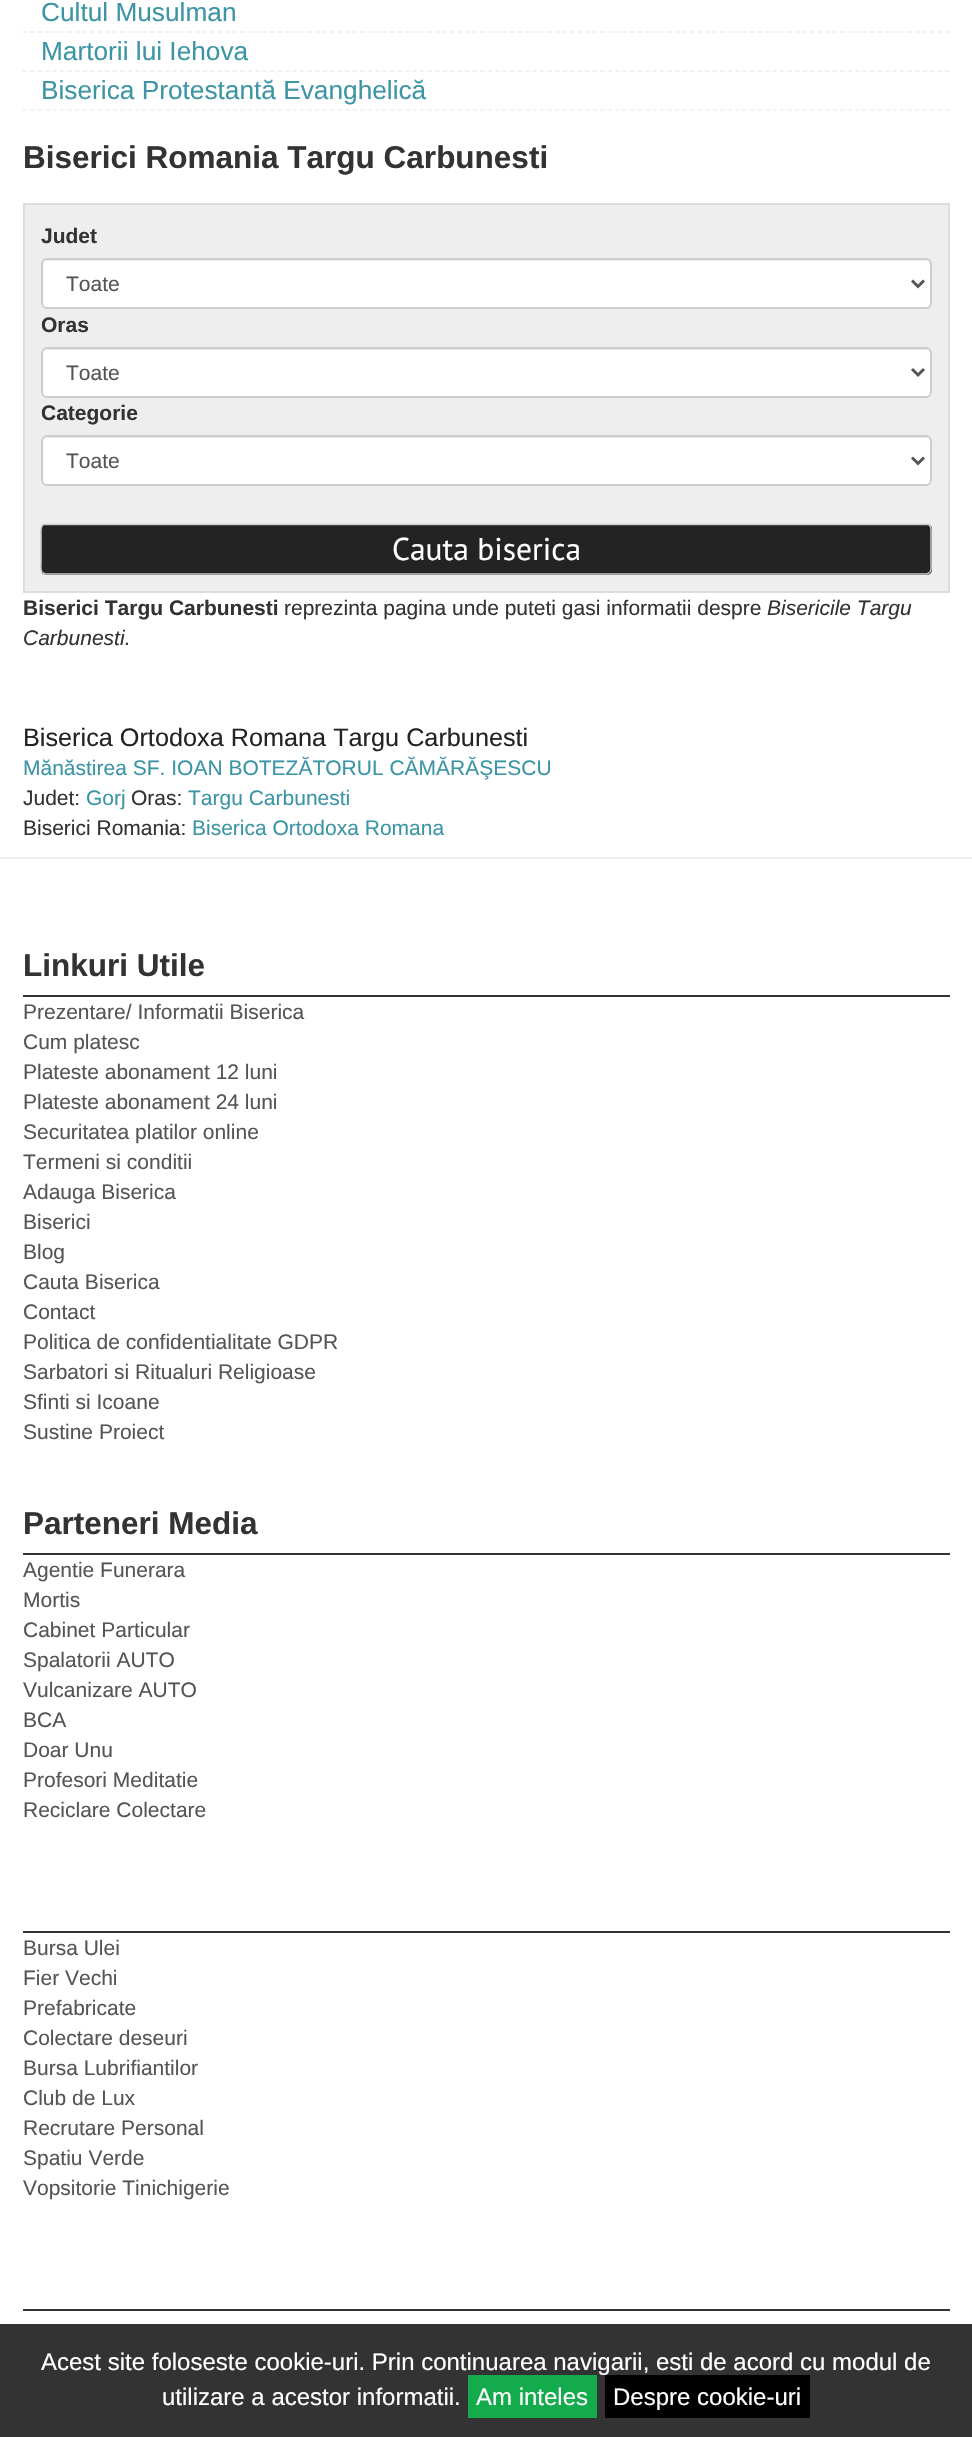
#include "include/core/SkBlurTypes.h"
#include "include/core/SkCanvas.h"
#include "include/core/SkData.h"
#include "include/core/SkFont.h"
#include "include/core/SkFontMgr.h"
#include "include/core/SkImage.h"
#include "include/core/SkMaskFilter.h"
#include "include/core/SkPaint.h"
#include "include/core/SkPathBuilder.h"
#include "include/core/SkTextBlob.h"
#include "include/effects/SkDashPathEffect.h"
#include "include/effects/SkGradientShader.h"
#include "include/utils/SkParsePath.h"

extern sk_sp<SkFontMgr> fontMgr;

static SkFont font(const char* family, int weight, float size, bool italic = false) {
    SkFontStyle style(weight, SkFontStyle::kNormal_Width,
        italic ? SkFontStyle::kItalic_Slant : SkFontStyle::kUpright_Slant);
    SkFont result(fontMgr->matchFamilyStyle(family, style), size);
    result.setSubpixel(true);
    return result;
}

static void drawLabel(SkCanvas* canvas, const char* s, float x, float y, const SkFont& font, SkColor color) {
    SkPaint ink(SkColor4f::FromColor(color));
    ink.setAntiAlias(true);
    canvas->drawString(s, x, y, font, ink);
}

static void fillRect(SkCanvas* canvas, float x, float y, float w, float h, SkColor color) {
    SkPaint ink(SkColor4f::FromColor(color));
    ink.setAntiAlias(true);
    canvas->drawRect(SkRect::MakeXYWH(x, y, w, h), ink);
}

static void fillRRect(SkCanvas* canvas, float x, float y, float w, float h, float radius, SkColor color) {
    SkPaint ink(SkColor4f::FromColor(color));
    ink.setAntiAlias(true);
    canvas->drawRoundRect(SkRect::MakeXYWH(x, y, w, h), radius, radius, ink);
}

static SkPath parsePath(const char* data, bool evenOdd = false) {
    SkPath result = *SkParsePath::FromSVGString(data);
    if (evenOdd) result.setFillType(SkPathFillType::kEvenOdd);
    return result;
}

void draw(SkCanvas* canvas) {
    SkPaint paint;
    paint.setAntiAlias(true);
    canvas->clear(0xFFFFFFFF);
    paint.setStroke(true);
    paint.setStrokeWidth(1.5f);
    paint.setColor(0xFFEEEEEE);
    paint.setPathEffect(SkDashPathEffect::Make({{4.5f, 3}}, 0));
    canvas->drawPath(parsePath("M22.5 32H949.5"), paint);
    paint.setPathEffect(nullptr);
    SkFont font1 = font("Liberation Sans", 400, 26.25f);
    drawLabel(canvas, "Cultul Musulman", 41, 21, font1, 0xFF3C95A5);
    paint.setPathEffect(SkDashPathEffect::Make({{4.5f, 3}}, 0));
    canvas->drawPath(parsePath("M22.5 71H949.5"), paint);
    paint.setPathEffect(nullptr);
    drawLabel(canvas, "Martorii lui Iehova", 41, 60, font1, 0xFF3C95A5);
    paint.setPathEffect(SkDashPathEffect::Make({{4.5f, 3}}, 0));
    canvas->drawPath(parsePath("M22.5 110H949.5"), paint);
    paint.setPathEffect(nullptr);
    drawLabel(canvas, "Biserica Protestantă Evanghelică", 41, 99, font1, 0xFF3C95A5);
    SkFont font2 = font("Liberation Sans", 700, 31.5f);
    drawLabel(canvas, "Biserici Romania Targu Carbunesti", 23, 168, font2, 0xFF333333);
    paint.setStroke(false);
    canvas->drawRect(SkRect::MakeXYWH(24, 204, 925, 388), paint);
    paint.setStroke(true);
    paint.setStrokeWidth(2);
    paint.setColor(0xFFDDDDDD);
    canvas->drawRect(SkRect::MakeXYWH(24, 204, 925, 388), paint);
    SkFont font3 = font("Liberation Sans", 700, 21);
    drawLabel(canvas, "Judet", 41, 243, font3, 0xFF333333);
    fillRRect(canvas, 41, 258, 891, 51, 6, 0xFFFFFFFF);
    paint.setStroke(false);
    paint.setColor(0xFFECECEC);
    canvas->drawPath(parsePath("M46 261H926C928 261 930 263 930 266V265C930 262 928 260 925 260H47C44 260 42 262 42 265V266C42 263 44 261 46 261Z"), paint);
    paint.setStroke(true);
    paint.setColor(0xFFCCCCCC);
    canvas->drawRoundRect(SkRect::MakeXYWH(42, 259, 889, 49), 5, 5, paint);
    paint.setStrokeWidth(3);
    paint.setColor(0xFF555555);
    canvas->drawPath(parsePath("M912 280.5L918 286.5L924 280.5"), paint);
    SkFont font4 = font("Liberation Sans", 400, 21);
    drawLabel(canvas, "Toate", 66, 291, font4, 0xFF555555);
    drawLabel(canvas, "Oras", 41, 332, font3, 0xFF333333);
    fillRRect(canvas, 41, 347, 891, 51, 6, 0xFFFFFFFF);
    paint.setStroke(false);
    paint.setColor(0xFFECECEC);
    canvas->drawPath(parsePath("M46 350H926C928 350 930 352 930 354V353C930 350 928 348 925 348H47C44 348 42 350 42 353V354C42 352 44 350 46 350Z"), paint);
    paint.setStroke(true);
    paint.setStrokeWidth(2);
    paint.setColor(0xFFCCCCCC);
    canvas->drawRoundRect(SkRect::MakeXYWH(42, 348, 889, 49), 5, 5, paint);
    paint.setStrokeWidth(3);
    paint.setColor(0xFF555555);
    canvas->drawPath(parsePath("M912 369L918 375L924 369"), paint);
    drawLabel(canvas, "Toate", 66, 380, font4, 0xFF555555);
    drawLabel(canvas, "Categorie", 41, 420, font3, 0xFF333333);
    fillRRect(canvas, 41, 435, 891, 51, 6, 0xFFFFFFFF);
    paint.setStroke(false);
    paint.setColor(0xFFECECEC);
    canvas->drawPath(parsePath("M46 438H926C928 438 930 440 930 442C930 439 928 437 925 437H47C44 437 42 439 42 442C42 440 44 438 46 438Z"), paint);
    paint.setStroke(true);
    paint.setStrokeWidth(2);
    paint.setColor(0xFFCCCCCC);
    canvas->drawRoundRect(SkRect::MakeXYWH(42, 436, 889, 49), 5, 5, paint);
    paint.setStrokeWidth(3);
    paint.setColor(0xFF555555);
    canvas->drawPath(parsePath("M912 457.5L918 463.5L924 457.5"), paint);
    drawLabel(canvas, "Toate", 66, 468, font4, 0xFF555555);
    fillRRect(canvas, 41, 524, 891, 51, 5, 0xFF222322);
    paint.setStroke(false);
    paint.setColor(0xFF1F201F);
    canvas->drawPath(parsePath("M45 526H927C929 526 930 528 930 530V528C930 526 929 525 927 525H45C43 525 42 526 42 528V530C42 528 43 526 45 526Z"), paint);
    paint.setStroke(true);
    paint.setStrokeWidth(1.5f);
    paint.setColor(0xFFC6C6C6);
    canvas->drawPath(parsePath("M929.5 572.5L927 574H45L42.5 572.5"), paint);
    paint.setColor(0xFFCCCCCC);
    canvas->drawPath(parsePath("M42.5 572.5C40 570.5 41 564.5 41 563V535C41 532.5 40 526 43.5 524.5H928.5C932 526 931 532.5 931 535V563C931 564.5 932 570.5 929.5 572.5"), paint);
    SkFont font5 = font("PT Sans", 400, 31.5f);
    drawLabel(canvas, "Cauta biserica", 392, 560, font5, 0xFFFFFFFF);
    drawLabel(canvas, "Biserici Targu Carbunesti", 23, 615, font3, 0xFF333333);
    drawLabel(canvas, "reprezinta pagina unde puteti gasi informatii despre", 284, 615, font4, 0xFF333333);
    SkFont font6 = font("Liberation Sans", 400, 21, true);
    drawLabel(canvas, "Bisericile Targu", 767, 615, font6, 0xFF333333);
    drawLabel(canvas, "Carbunesti", 23, 645, font6, 0xFF333333);
    drawLabel(canvas, ".", 124, 645, font4, 0xFF333333);
    fillRect(canvas, 0, 857, 972, 2, 0xFFEEEEEE);
    SkFont font7 = font("Liberation Sans", 400, 25.25f);
    drawLabel(canvas, "Biserica Ortodoxa Romana Targu Carbunesti", 23, 746, font7, 0xFF222322);
    drawLabel(canvas, "Mănăstirea SF. IOAN BOTEZĂTORUL CĂMĂRĂŞESCU", 23, 775, font4, 0xFF3C95A5);
    drawLabel(canvas, "Judet:", 23, 805, font4, 0xFF333333);
    drawLabel(canvas, "Gorj", 86, 805, font4, 0xFF3C95A5);
    drawLabel(canvas, "Oras:", 131, 805, font4, 0xFF333333);
    drawLabel(canvas, "Targu Carbunesti", 188, 805, font4, 0xFF3C95A5);
    drawLabel(canvas, "Biserici Romania:", 23, 835, font4, 0xFF333333);
    drawLabel(canvas, "Biserica Ortodoxa Romana", 192, 835, font4, 0xFF3C95A5);
    fillRect(canvas, 23, 995, 927, 2, 0xFF333333);
    drawLabel(canvas, "Linkuri Utile", 23, 976, font2, 0xFF333333);
    drawLabel(canvas, "Prezentare/ Informatii Biserica", 23, 1019, font4, 0xFF555555);
    drawLabel(canvas, "Cum platesc", 23, 1049, font4, 0xFF555555);
    drawLabel(canvas, "Plateste abonament 12 luni", 23, 1079, font4, 0xFF555555);
    drawLabel(canvas, "Plateste abonament 24 luni", 23, 1109, font4, 0xFF555555);
    drawLabel(canvas, "Securitatea platilor online", 23, 1139, font4, 0xFF555555);
    drawLabel(canvas, "Termeni si conditii", 23, 1169, font4, 0xFF555555);
    drawLabel(canvas, "Adauga Biserica", 23, 1199, font4, 0xFF555555);
    drawLabel(canvas, "Biserici", 23, 1229, font4, 0xFF555555);
    drawLabel(canvas, "Blog", 23, 1259, font4, 0xFF555555);
    drawLabel(canvas, "Cauta Biserica", 23, 1289, font4, 0xFF555555);
    drawLabel(canvas, "Contact", 23, 1319, font4, 0xFF555555);
    drawLabel(canvas, "Politica de confidentialitate GDPR", 23, 1349, font4, 0xFF555555);
    drawLabel(canvas, "Sarbatori si Ritualuri Religioase", 23, 1379, font4, 0xFF555555);
    drawLabel(canvas, "Sfinti si Icoane", 23, 1409, font4, 0xFF555555);
    drawLabel(canvas, "Sustine Proiect", 23, 1439, font4, 0xFF555555);
    fillRect(canvas, 23, 1553, 927, 2, 0xFF333333);
    drawLabel(canvas, "Parteneri Media", 23, 1534, font2, 0xFF333333);
    drawLabel(canvas, "Agentie Funerara", 23, 1577, font4, 0xFF555555);
    drawLabel(canvas, "Mortis", 23, 1607, font4, 0xFF555555);
    drawLabel(canvas, "Cabinet Particular", 23, 1637, font4, 0xFF555555);
    drawLabel(canvas, "Spalatorii AUTO", 23, 1667, font4, 0xFF555555);
    drawLabel(canvas, "Vulcanizare AUTO", 23, 1697, font4, 0xFF555555);
    drawLabel(canvas, "BCA", 23, 1727, font4, 0xFF555555);
    drawLabel(canvas, "Doar Unu", 23, 1757, font4, 0xFF555555);
    drawLabel(canvas, "Profesori Meditatie", 23, 1787, font4, 0xFF555555);
    drawLabel(canvas, "Reciclare Colectare", 23, 1817, font4, 0xFF555555);
    fillRect(canvas, 23, 1931, 927, 2, 0xFF333333);
    drawLabel(canvas, "Bursa Ulei", 23, 1955, font4, 0xFF555555);
    drawLabel(canvas, "Fier Vechi", 23, 1985, font4, 0xFF555555);
    drawLabel(canvas, "Prefabricate", 23, 2015, font4, 0xFF555555);
    drawLabel(canvas, "Colectare deseuri", 23, 2045, font4, 0xFF555555);
    drawLabel(canvas, "Bursa Lubrifiantilor", 23, 2075, font4, 0xFF555555);
    drawLabel(canvas, "Club de Lux", 23, 2105, font4, 0xFF555555);
    drawLabel(canvas, "Recrutare Personal", 23, 2135, font4, 0xFF555555);
    drawLabel(canvas, "Spatiu Verde", 23, 2165, font4, 0xFF555555);
    drawLabel(canvas, "Vopsitorie Tinichigerie", 23, 2195, font4, 0xFF555555);
    fillRect(canvas, 23, 2309, 927, 2, 0xFF333333);
    fillRect(canvas, 0, 2324, 972, 113, 0xCC000000);
    SkFont font8 = font("Liberation Sans", 400, 24);
    drawLabel(canvas, "Acest site foloseste cookie-uri. Prin continuarea navigarii, esti de acord cu modul de", 41, 2370, font8, 0xFFFFFFFF);
    drawLabel(canvas, "utilizare a acestor informatii.", 162, 2405, font8, 0xFFFFFFFF);
    fillRect(canvas, 468, 2375, 129, 43, 0xFF13AB4C);
    drawLabel(canvas, "Am inteles", 476, 2405, font8, 0xFFFFFFFF);
    fillRect(canvas, 605, 2375, 205, 43, 0xFF000000);
    drawLabel(canvas, "Despre cookie-uri", 613, 2405, font8, 0xFFFFFFFF);
}
